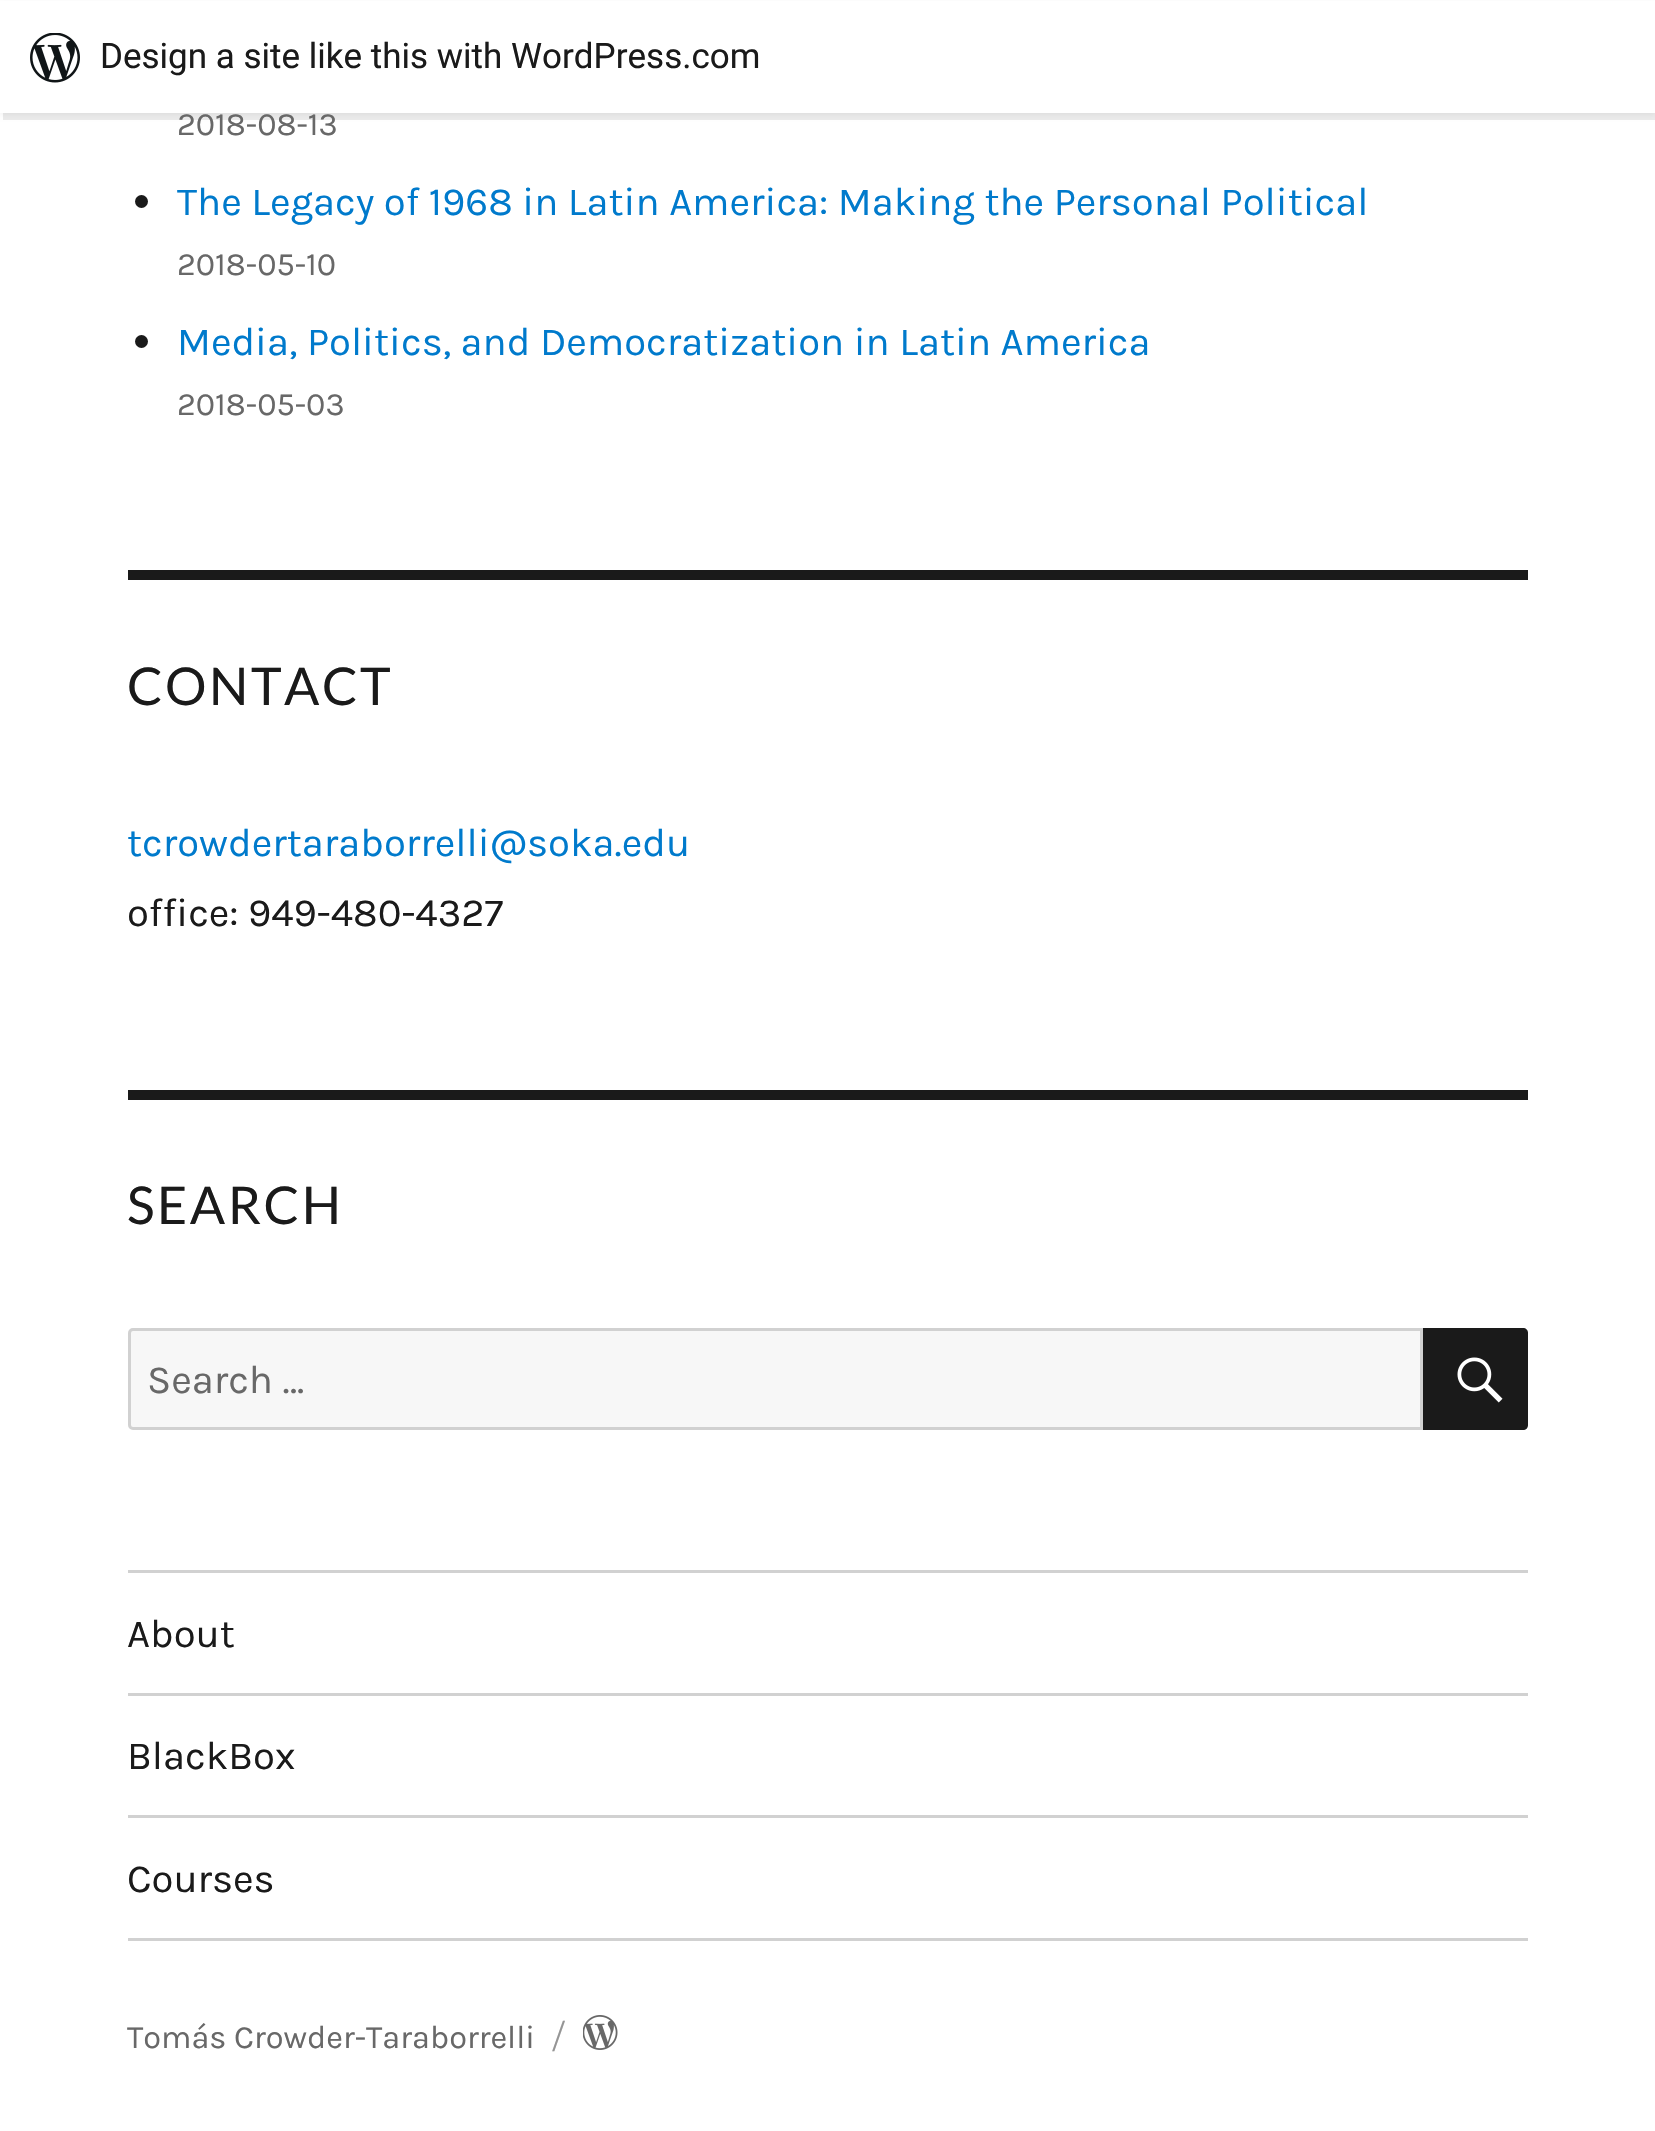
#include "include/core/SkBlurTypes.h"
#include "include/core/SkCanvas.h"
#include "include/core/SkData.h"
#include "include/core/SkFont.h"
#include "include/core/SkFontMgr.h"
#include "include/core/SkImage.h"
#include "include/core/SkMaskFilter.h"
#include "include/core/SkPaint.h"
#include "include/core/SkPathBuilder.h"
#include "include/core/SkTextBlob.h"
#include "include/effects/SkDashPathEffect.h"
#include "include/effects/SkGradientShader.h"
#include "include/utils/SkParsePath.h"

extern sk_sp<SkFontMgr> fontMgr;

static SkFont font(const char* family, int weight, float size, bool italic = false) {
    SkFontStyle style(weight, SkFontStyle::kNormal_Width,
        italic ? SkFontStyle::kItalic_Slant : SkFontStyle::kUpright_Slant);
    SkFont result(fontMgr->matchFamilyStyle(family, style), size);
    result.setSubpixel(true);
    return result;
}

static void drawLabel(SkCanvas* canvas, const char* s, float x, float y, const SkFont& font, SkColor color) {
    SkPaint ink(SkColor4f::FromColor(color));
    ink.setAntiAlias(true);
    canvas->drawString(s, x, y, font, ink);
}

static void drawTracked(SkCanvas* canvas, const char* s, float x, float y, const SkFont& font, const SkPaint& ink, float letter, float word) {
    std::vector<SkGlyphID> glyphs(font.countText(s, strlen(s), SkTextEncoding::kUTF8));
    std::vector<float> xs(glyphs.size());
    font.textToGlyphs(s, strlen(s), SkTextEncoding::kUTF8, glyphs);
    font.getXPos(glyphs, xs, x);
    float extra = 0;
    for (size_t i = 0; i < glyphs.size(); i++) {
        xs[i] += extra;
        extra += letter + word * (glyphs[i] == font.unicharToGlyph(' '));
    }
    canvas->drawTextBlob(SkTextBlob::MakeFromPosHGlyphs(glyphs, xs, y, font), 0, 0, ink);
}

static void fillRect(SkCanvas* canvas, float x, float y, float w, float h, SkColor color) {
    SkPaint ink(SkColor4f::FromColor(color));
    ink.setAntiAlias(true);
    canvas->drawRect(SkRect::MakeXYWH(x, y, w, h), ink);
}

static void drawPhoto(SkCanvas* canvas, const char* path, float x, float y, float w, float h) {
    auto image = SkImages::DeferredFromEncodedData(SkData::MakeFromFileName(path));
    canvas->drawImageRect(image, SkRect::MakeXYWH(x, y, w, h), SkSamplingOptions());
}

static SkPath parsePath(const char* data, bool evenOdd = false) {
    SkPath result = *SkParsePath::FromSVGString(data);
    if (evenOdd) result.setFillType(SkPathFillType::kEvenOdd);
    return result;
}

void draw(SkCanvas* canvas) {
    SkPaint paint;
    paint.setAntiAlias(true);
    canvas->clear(0xFFFFFFFF);
    paint.setColor(0x0D000000);
    paint.setMaskFilter(SkMaskFilter::MakeBlur(kNormal_SkBlurStyle, 2.5f));
    canvas->drawRect(SkRect::MakeXYWH(0, 3, 1655, 112), paint);
    paint.setMaskFilter(nullptr);
    paint.setColor(0x14000000);
    canvas->drawPath(parsePath("M3 112V120H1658V8H1655V112Z"), paint);
    fillRect(canvas, 0, 1, 1655, 112, 0xFFFFFFFF);
    drawPhoto(canvas, "assets/img1.png", 30, 33, 50, 50);
    SkFont font1 = font("Roboto", 400, 35);
    drawLabel(canvas, "Design a site like this with WordPress.com", 100, 68, font1, 0xFF1A1A1A);
    SkFont font2 = font("Karla", 400, 32.5f);
    drawLabel(canvas, "2018-08-13", 177, 135, font2, 0xFF686868);
    paint.setColor(0xFF1A1A1A);
    canvas->drawCircle(141.5f, 201.5f, 6.5f, paint);
    SkFont font3 = font("Karla", 400, 40);
    drawLabel(canvas, "The Legacy of 1968 in Latin America: Making the Personal Political", 177, 215, font3, 0xFF007ACC);
    drawLabel(canvas, "2018-05-10", 177, 275, font2, 0xFF686868);
    canvas->drawCircle(141.5f, 341.5f, 6.5f, paint);
    drawLabel(canvas, "Media, Politics, and Democratization in Latin America", 177, 355, font3, 0xFF007ACC);
    drawLabel(canvas, "2018-05-03", 177, 415, font2, 0xFF686868);
    fillRect(canvas, 128, 570, 1400, 10, 0xFF1A1A1A);
    SkFont font4 = font("Lato", 400, 52);
    drawTracked(canvas, "CONTACT", 127, 705, font4, paint, 2.5f, 0);
    drawLabel(canvas, "tcrowdertaraborrelli@soka.edu", 127, 856, font3, 0xFF007ACC);
    drawLabel(canvas, "office: 949-480-4327", 127, 926, font3, 0xFF1A1A1A);
    fillRect(canvas, 128, 1090, 1400, 10, 0xFF1A1A1A);
    drawTracked(canvas, "SEARCH", 127, 1224, font4, paint, 2.5f, 0);
    paint.setColor(0xFFF7F7F7);
    canvas->drawPath(parsePath("M133 1329.5H1421.5V1428.5H133C131 1428.5 129.5 1427 129.5 1425V1333C129.5 1331 131 1329.5 133 1329.5Z"), paint);
    paint.setStroke(true);
    paint.setStrokeWidth(3);
    paint.setColor(0xFFD1D1D1);
    canvas->drawPath(parsePath("M133 1329.5H1421.5V1428.5H133C131 1428.5 129.5 1427 129.5 1425V1333C129.5 1331 131 1329.5 133 1329.5Z"), paint);
    drawLabel(canvas, "Search …", 147, 1393, font3, 0xFF686868);
    paint.setStroke(false);
    paint.setColor(0xFF1A1A1A);
    canvas->drawPath(parsePath("M1423 1328H1523C1526 1328 1528 1330 1528 1333V1425C1528 1428 1526 1430 1523 1430H1423Z"), paint);
    drawPhoto(canvas, "assets/img2.png", 1457, 1357, 46, 46);
    fillRect(canvas, 128, 1938, 1400, 3, 0xFFD1D1D1);
    fillRect(canvas, 128, 1570, 1400, 3, 0xFFD1D1D1);
    drawLabel(canvas, "About", 127, 1647, font3, 0xFF1A1A1A);
    fillRect(canvas, 128, 1693, 1400, 3, 0xFFD1D1D1);
    drawLabel(canvas, "BlackBox", 127, 1769, font3, 0xFF1A1A1A);
    fillRect(canvas, 128, 1815, 1400, 3, 0xFFD1D1D1);
    drawLabel(canvas, "Courses", 127, 1892, font3, 0xFF1A1A1A);
    drawLabel(canvas, "Tomás Crowder-Taraborrelli", 127, 2048, font2, 0xFF686868);
    SkFont font5 = font("Montserrat", 100, 32.5f);
    drawLabel(canvas, "/", 553, 2048, font5, 0xFF959595);
    drawPhoto(canvas, "assets/img3.png", 583, 2015, 35, 35);
}
